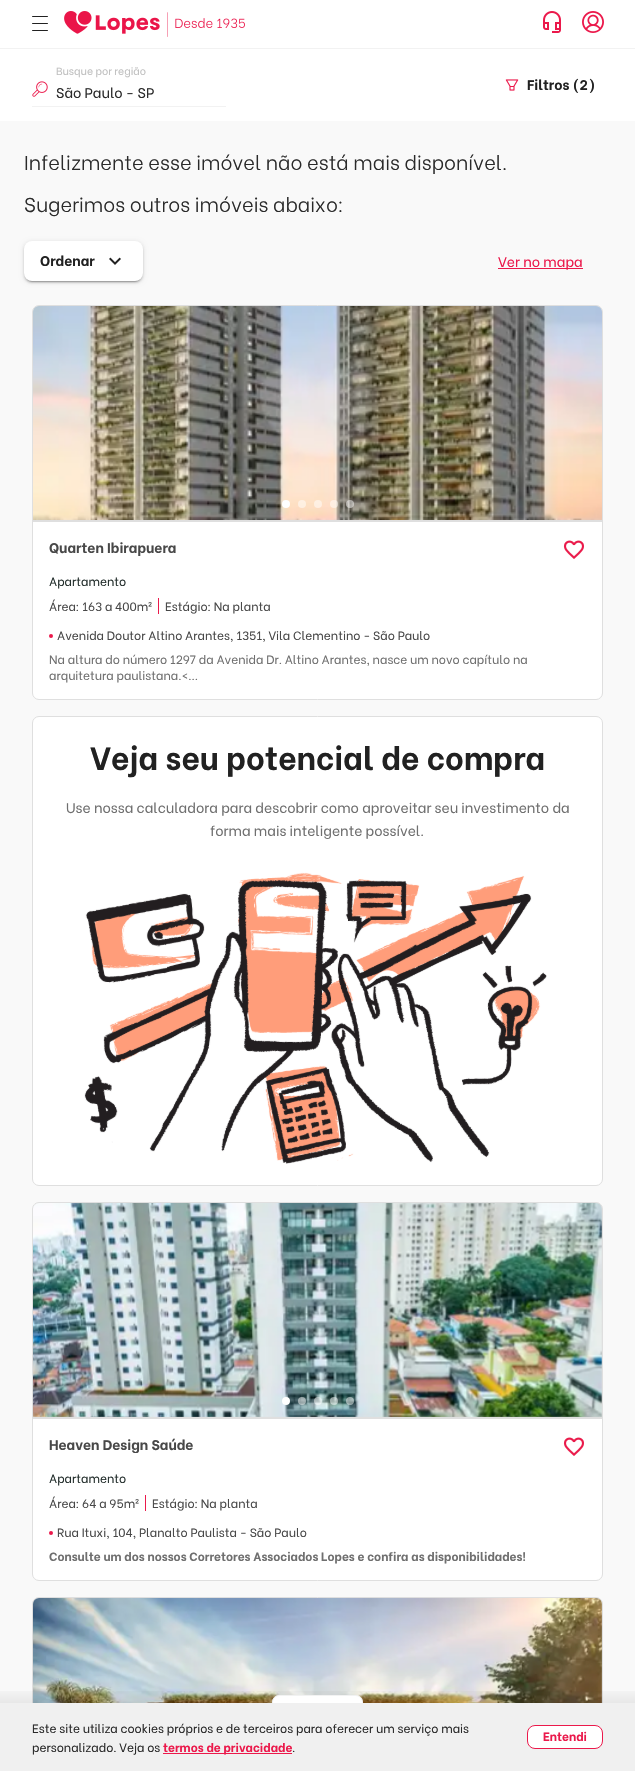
#include "include/core/SkBlurTypes.h"
#include "include/core/SkCanvas.h"
#include "include/core/SkData.h"
#include "include/core/SkFont.h"
#include "include/core/SkFontMgr.h"
#include "include/core/SkImage.h"
#include "include/core/SkMaskFilter.h"
#include "include/core/SkPaint.h"
#include "include/core/SkPathBuilder.h"
#include "include/core/SkTextBlob.h"
#include "include/effects/SkDashPathEffect.h"
#include "include/effects/SkGradientShader.h"
#include "include/utils/SkParsePath.h"

extern sk_sp<SkFontMgr> fontMgr;

static SkFont font(const char* family, int weight, float size, bool italic = false) {
    SkFontStyle style(weight, SkFontStyle::kNormal_Width,
        italic ? SkFontStyle::kItalic_Slant : SkFontStyle::kUpright_Slant);
    SkFont result(fontMgr->matchFamilyStyle(family, style), size);
    result.setSubpixel(true);
    return result;
}

static void drawLabel(SkCanvas* canvas, const char* s, float x, float y, const SkFont& font, SkColor color) {
    SkPaint ink(SkColor4f::FromColor(color));
    ink.setAntiAlias(true);
    canvas->drawString(s, x, y, font, ink);
}

static void fillRect(SkCanvas* canvas, float x, float y, float w, float h, SkColor color) {
    SkPaint ink(SkColor4f::FromColor(color));
    ink.setAntiAlias(true);
    canvas->drawRect(SkRect::MakeXYWH(x, y, w, h), ink);
}

static void fillRRect(SkCanvas* canvas, float x, float y, float w, float h, float radius, SkColor color) {
    SkPaint ink(SkColor4f::FromColor(color));
    ink.setAntiAlias(true);
    canvas->drawRoundRect(SkRect::MakeXYWH(x, y, w, h), radius, radius, ink);
}

static void drawPhoto(SkCanvas* canvas, const char* path, float x, float y, float w, float h) {
    auto image = SkImages::DeferredFromEncodedData(SkData::MakeFromFileName(path));
    canvas->drawImageRect(image, SkRect::MakeXYWH(x, y, w, h), SkSamplingOptions());
}

static SkPath parsePath(const char* data, bool evenOdd = false) {
    SkPath result = *SkParsePath::FromSVGString(data);
    if (evenOdd) result.setFillType(SkPathFillType::kEvenOdd);
    return result;
}

void draw(SkCanvas* canvas) {
    SkPaint paint;
    paint.setAntiAlias(true);
    canvas->clear(0xFFFFFFFF);
    fillRect(canvas, 0, 48, 635, 1, 0xFFF2F2F2);
    drawPhoto(canvas, "assets/img1.png", 32, 16, 16, 15);
    drawPhoto(canvas, "assets/img2.png", 64, 11, 181, 26);
    drawPhoto(canvas, "assets/img3.png", 543, 11, 18, 22);
    drawPhoto(canvas, "assets/img4.png", 582, 11, 22, 22);
    drawPhoto(canvas, "assets/img5.png", 32, 81, 16, 16);
    SkFont font1 = font("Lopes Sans", 400, 10.5f);
    drawLabel(canvas, "Busque por região", 56, 75, font1, 0xFFBFBFBF);
    SkFont font2 = font("Lopes Sans", 400, 14);
    drawLabel(canvas, "São Paulo - SP", 56, 98, font2, 0xFF2A2A2A);
    fillRect(canvas, 32, 106, 194, 1, 0xFFF2F2F2);
    drawPhoto(canvas, "assets/img6.png", 505, 79, 14, 12);
    SkFont font3 = font("Lopes Sans", 700, 14);
    drawLabel(canvas, "Filtros (2)", 527, 90, font3, 0xFF212121);
    fillRect(canvas, 0, 121, 635, 1582, 0xFFF9F9F9);
    SkFont font4 = font("Lopes Sans", 300, 20);
    drawLabel(canvas, "Infelizmente esse imóvel não está mais disponível.", 24, 170, font4, 0xFF2A2A2A);
    drawLabel(canvas, "Sugerimos outros imóveis abaixo:", 24, 212, font4, 0xFF2A2A2A);
    paint.setColor(0x1F000000);
    paint.setMaskFilter(SkMaskFilter::MakeBlur(kNormal_SkBlurStyle, 2.5f));
    canvas->drawRoundRect(SkRect::MakeXYWH(24, 242, 119, 40), 8, 8, paint);
    paint.setMaskFilter(nullptr);
    paint.setColor(0x24000000);
    paint.setMaskFilter(SkMaskFilter::MakeBlur(kNormal_SkBlurStyle, 1));
    canvas->drawRoundRect(SkRect::MakeXYWH(24, 243, 119, 40), 8, 8, paint);
    paint.setMaskFilter(nullptr);
    paint.setColor(0x33000000);
    paint.setMaskFilter(SkMaskFilter::MakeBlur(kNormal_SkBlurStyle, 0.5f));
    canvas->drawRoundRect(SkRect::MakeXYWH(26, 246, 115, 36), 6, 6, paint);
    paint.setMaskFilter(nullptr);
    fillRRect(canvas, 24, 241, 119, 40, 8, 0xFFFFFFFF);
    drawLabel(canvas, "Ordenar", 40, 266, font3, 0xFF212121);
    drawPhoto(canvas, "assets/img7.png", 109, 257, 12, 8);
    fillRect(canvas, 498, 268, 85, 1, 0xFFEB194B);
    drawLabel(canvas, "Ver no mapa", 498, 267, font2, 0xFFEB194B);
    paint.setColor(0xFFFFFFFF);
    canvas->drawRoundRect(SkRect::MakeXYWH(32.5f, 305.5f, 570, 394), 6.5f, 6.5f, paint);
    paint.setStroke(true);
    paint.setStrokeWidth(1);
    paint.setColor(0xFFDFDFDF);
    canvas->drawRoundRect(SkRect::MakeXYWH(32.5f, 305.5f, 570, 394), 6.5f, 6.5f, paint);
    paint.setStroke(false);
    canvas->drawPath(parsePath("M39 306H596C599.5 306 602 308.5 602 312V522H33V312C33 308.5 35.5 306 39 306Z"), paint);
    drawPhoto(canvas, "assets/img8.png", 33, 306, 569, 214);
    paint.setColor(0xFFFFFFFF);
    canvas->drawCircle(286, 504, 4, paint);
    paint.setColor(0x80FFFFFF);
    canvas->drawCircle(302, 504, 4, paint);
    canvas->drawCircle(318, 504, 4, paint);
    canvas->drawCircle(334, 504, 4, paint);
    canvas->drawCircle(350, 504, 4, paint);
    drawLabel(canvas, "Quarten Ibirapuera", 49, 553, font3, 0xFF484848);
    drawPhoto(canvas, "assets/img9.png", 563, 540, 21, 19);
    SkFont font5 = font("Lopes Sans", 400, 12);
    drawLabel(canvas, "Apartamento", 49, 586, font5, 0xFF242F2D);
    fillRect(canvas, 158, 598, 1, 16, 0xFFEB194B);
    drawLabel(canvas, "Área: 163 a 400m²", 49, 611, font5, 0xFF484848);
    drawLabel(canvas, "Estágio: Na planta", 165, 611, font5, 0xFF484848);
    paint.setColor(0xFFEB194B);
    canvas->drawCircle(51, 636, 2, paint);
    drawLabel(canvas, "Avenida Doutor Altino Arantes, 1351, Vila Clementino - São Paulo", 57, 640, font5, 0xFF484848);
    drawLabel(canvas, "Na altura do número 1297 da Avenida Dr. Altino Arantes, nasce um novo capítulo na", 49, 664, font5, 0xFF6F6F6F);
    drawLabel(canvas, "arquitetura paulistana.<...", 49, 680, font5, 0xFF6F6F6F);
    paint.setColor(0xFFFFFFFF);
    canvas->drawRoundRect(SkRect::MakeXYWH(32.5f, 716.5f, 570, 469), 6.5f, 6.5f, paint);
    paint.setStroke(true);
    paint.setColor(0xFFDFDFDF);
    canvas->drawRoundRect(SkRect::MakeXYWH(32.5f, 716.5f, 570, 469), 6.5f, 6.5f, paint);
    SkFont font6 = font("Lopes Sans", 700, 32);
    drawLabel(canvas, "Veja seu potencial de compra", 90, 770, font6, 0xFF212121);
    drawLabel(canvas, "Use nossa calculadora para descobrir como aproveitar seu investimento da", 66, 813, font2, 0xFF6F6F6F);
    drawLabel(canvas, "forma mais inteligente possível.", 210, 836, font2, 0xFF6F6F6F);
    drawPhoto(canvas, "assets/img10.png", 84, 872, 463, 292);
    paint.setStroke(false);
    paint.setColor(0xFFFFFFFF);
    canvas->drawRoundRect(SkRect::MakeXYWH(32.5f, 1202.5f, 570, 378), 6.5f, 6.5f, paint);
    paint.setStroke(true);
    paint.setColor(0xFFDFDFDF);
    canvas->drawRoundRect(SkRect::MakeXYWH(32.5f, 1202.5f, 570, 378), 6.5f, 6.5f, paint);
    paint.setStroke(false);
    canvas->drawPath(parsePath("M39 1203H596C599.5 1203 602 1205.5 602 1209V1419H33V1209C33 1205.5 35.5 1203 39 1203Z"), paint);
    canvas->drawPath(parsePath("M39 1203H596C599.5 1203 602 1205.5 602 1209V1417H33V1209C33 1205.5 35.5 1203 39 1203Z"), paint);
    drawPhoto(canvas, "assets/img11.png", 33, 1203, 569, 214);
    paint.setColor(0xFFFFFFFF);
    canvas->drawCircle(286, 1401, 4, paint);
    paint.setColor(0x80FFFFFF);
    canvas->drawCircle(302, 1401, 4, paint);
    canvas->drawCircle(318, 1401, 4, paint);
    canvas->drawCircle(334, 1401, 4, paint);
    canvas->drawCircle(350, 1401, 4, paint);
    canvas->save();
    canvas->clipRect(SkRect::MakeXYWH(49, 1435, 497, 18));
    drawLabel(canvas, "Heaven Design Saúde", 49, 1450, font3, 0xFF484848);
    canvas->restore();
    drawPhoto(canvas, "assets/img9.png", 563, 1437, 21, 19);
    drawLabel(canvas, "Apartamento", 49, 1483, font5, 0xFF242F2D);
    fillRect(canvas, 145, 1495, 1, 16, 0xFFEB194B);
    drawLabel(canvas, "Área: 64 a 95m²", 49, 1508, font5, 0xFF484848);
    drawLabel(canvas, "Estágio: Na planta", 152, 1508, font5, 0xFF484848);
    paint.setColor(0xFFEB194B);
    canvas->drawCircle(51, 1533, 2, paint);
    drawLabel(canvas, "Rua Ituxi, 104, Planalto Paulista - São Paulo", 57, 1537, font5, 0xFF484848);
    SkFont font7 = font("Lopes Sans", 700, 12);
    drawLabel(canvas, "Consulte um dos nossos Corretores Associados Lopes e confira as disponibilidades!", 49, 1561, font7, 0xFF6F6F6F);
    paint.setStroke(true);
    paint.setColor(0xFFDFDFDF);
    canvas->drawRoundRect(SkRect::MakeXYWH(32.5f, 1597.5f, 570, 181), 6.5f, 6.5f, paint);
    drawPhoto(canvas, "assets/img12.png", 33, 1598, 569, 105);
    paint.setStroke(false);
    {
        const SkColor colors[] = {0x00000000, 0x52000000};
        const float stops[] = {0.22f, 1};
        const SkPoint ends[] = {{318, 1661}, {318, 1771}};
        paint.setShader(SkGradientShader::MakeLinear(ends, colors, stops, 2, SkTileMode::kClamp));
        paint.setAlpha(255);
    }
    canvas->drawRect(SkRect::MakeXYWH(0, 1691, 635, 12), paint);
    paint.setShader(nullptr);
    paint.setColor(0xFFFFFFFF);
    canvas->drawRoundRect(SkRect::MakeXYWH(272.5f, 1695.5f, 90, 41), 6.5f, 6.5f, paint);
    paint.setStroke(true);
    paint.setColor(0xFFF2F2F2);
    canvas->drawRoundRect(SkRect::MakeXYWH(272.5f, 1695.5f, 90, 41), 6.5f, 6.5f, paint);
    fillRect(canvas, 0, 1703, 635, 68, 0xFFF0F0F0);
    drawLabel(canvas, "Este site utiliza cookies próprios e de terceiros para oferecer um serviço mais", 32, 1733, font5, 0xFF2A2A2A);
    drawLabel(canvas, "personalizado. Veja os", 32, 1752, font5, 0xFF2A2A2A);
    fillRect(canvas, 163, 1753, 129, 1, 0xFFEB194B);
    drawLabel(canvas, "termos de privacidade", 163, 1752, font7, 0xFFEB194B);
    drawLabel(canvas, ".", 292, 1752, font5, 0xFF2A2A2A);
    paint.setStroke(false);
    paint.setColor(0xFFFFFFFF);
    canvas->drawRoundRect(SkRect::MakeXYWH(527.5f, 1725.5f, 75, 23), 7.5f, 7.5f, paint);
    paint.setStroke(true);
    paint.setColor(0xFFEB194B);
    canvas->drawRoundRect(SkRect::MakeXYWH(527.5f, 1725.5f, 75, 23), 7.5f, 7.5f, paint);
    drawLabel(canvas, "Entendi", 543, 1741, font7, 0xFFEB194B);
}
